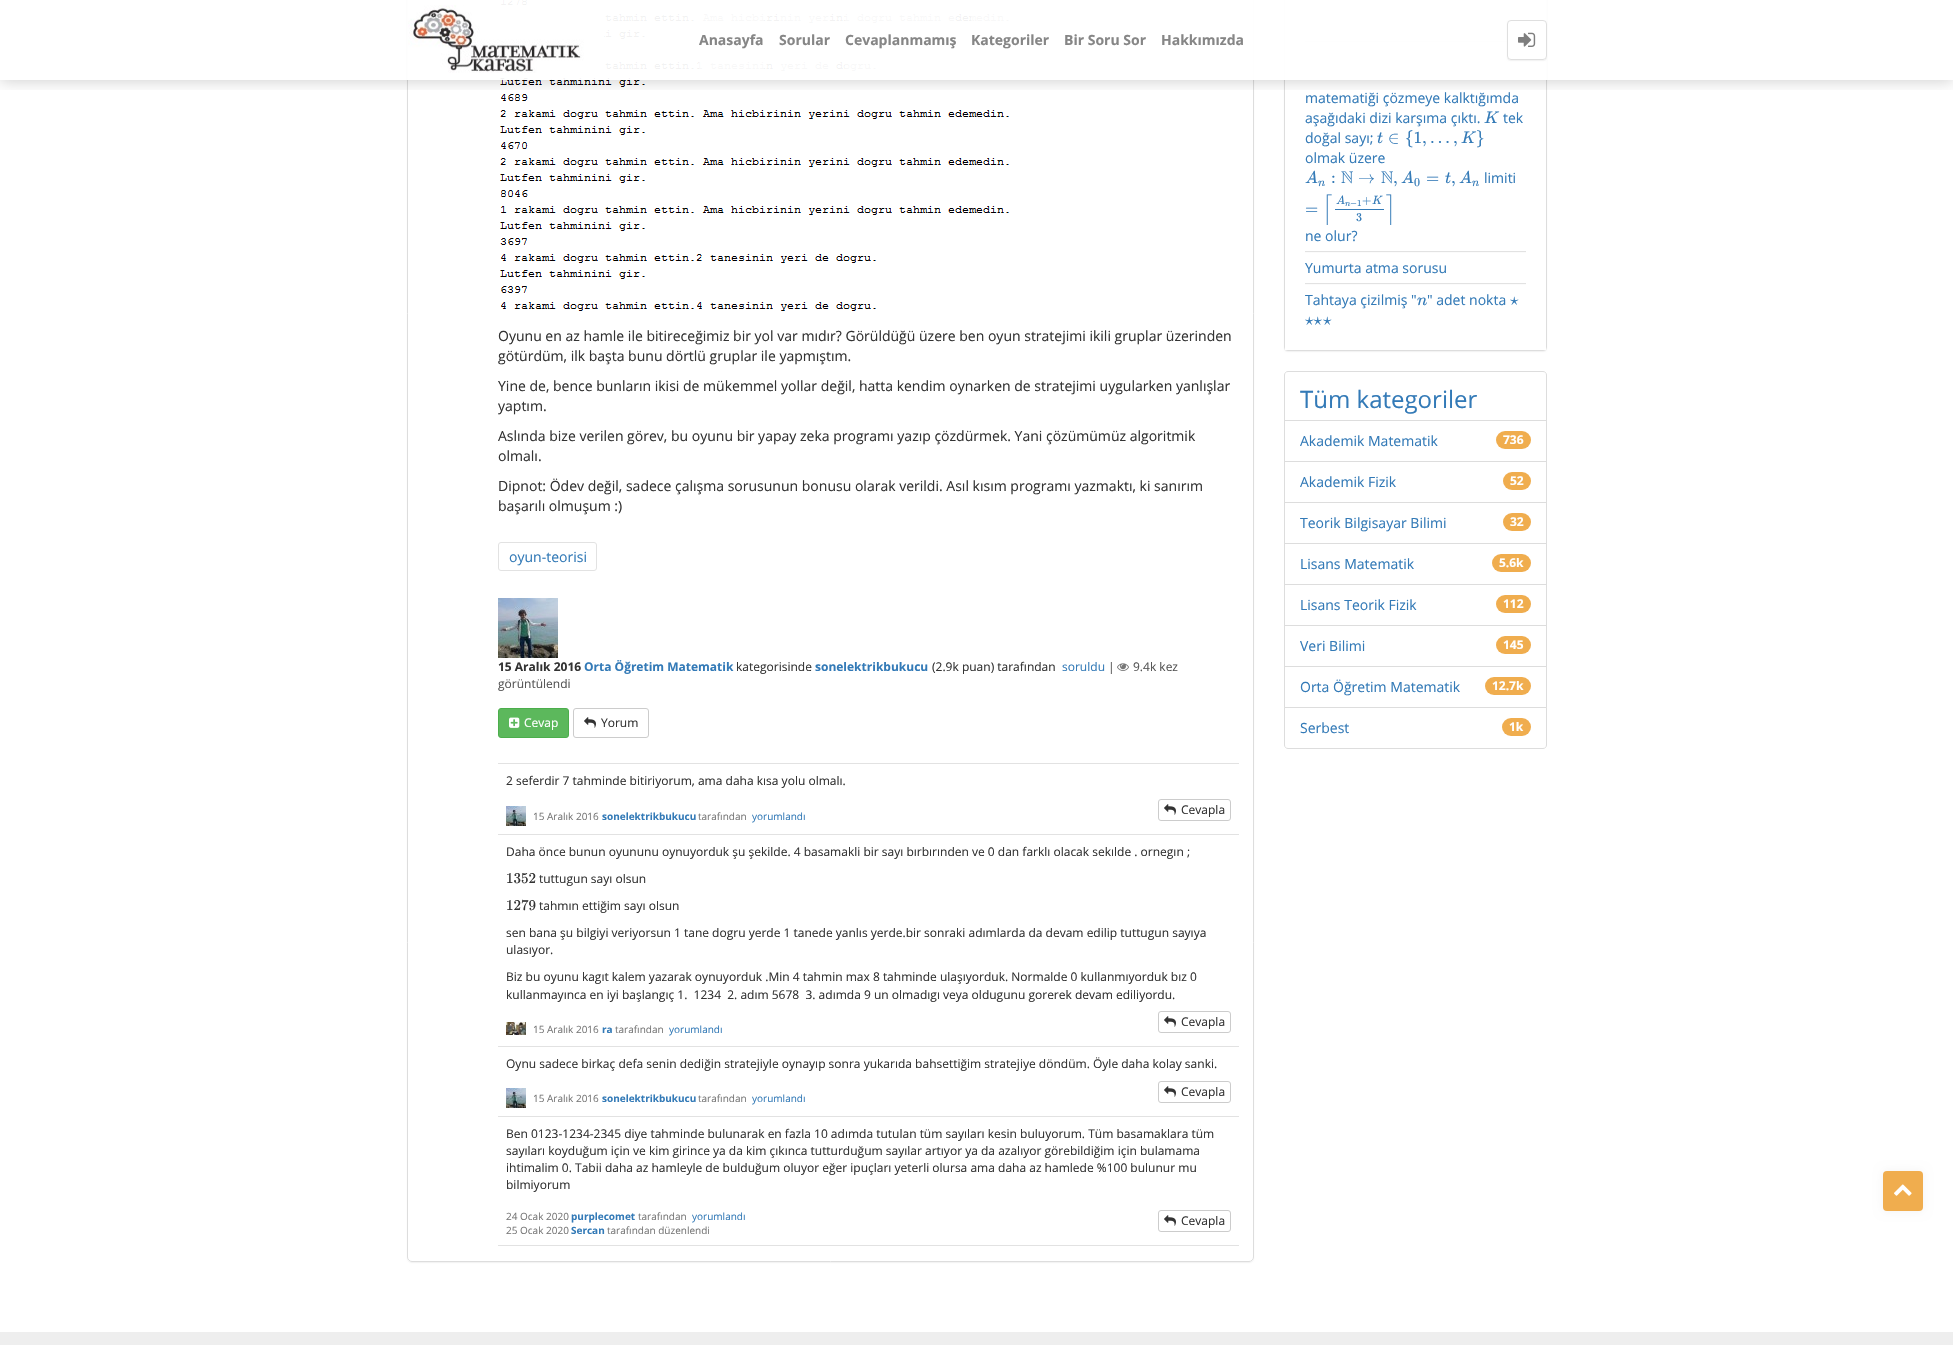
#include "include/core/SkBlurTypes.h"
#include "include/core/SkCanvas.h"
#include "include/core/SkData.h"
#include "include/core/SkFont.h"
#include "include/core/SkFontMgr.h"
#include "include/core/SkImage.h"
#include "include/core/SkMaskFilter.h"
#include "include/core/SkPaint.h"
#include "include/core/SkPathBuilder.h"
#include "include/core/SkTextBlob.h"
#include "include/effects/SkDashPathEffect.h"
#include "include/effects/SkGradientShader.h"
#include "include/utils/SkParsePath.h"

extern sk_sp<SkFontMgr> fontMgr;

static SkFont font(const char* family, int weight, float size, bool italic = false) {
    SkFontStyle style(weight, SkFontStyle::kNormal_Width,
        italic ? SkFontStyle::kItalic_Slant : SkFontStyle::kUpright_Slant);
    SkFont result(fontMgr->matchFamilyStyle(family, style), size);
    result.setSubpixel(true);
    return result;
}

static void drawLabel(SkCanvas* canvas, const char* s, float x, float y, const SkFont& font, SkColor color) {
    SkPaint ink(SkColor4f::FromColor(color));
    ink.setAntiAlias(true);
    canvas->drawString(s, x, y, font, ink);
}

static void fillRect(SkCanvas* canvas, float x, float y, float w, float h, SkColor color) {
    SkPaint ink(SkColor4f::FromColor(color));
    ink.setAntiAlias(true);
    canvas->drawRect(SkRect::MakeXYWH(x, y, w, h), ink);
}

static void fillRRect(SkCanvas* canvas, float x, float y, float w, float h, float radius, SkColor color) {
    SkPaint ink(SkColor4f::FromColor(color));
    ink.setAntiAlias(true);
    canvas->drawRoundRect(SkRect::MakeXYWH(x, y, w, h), radius, radius, ink);
}

static void drawPhoto(SkCanvas* canvas, const char* path, float x, float y, float w, float h) {
    auto image = SkImages::DeferredFromEncodedData(SkData::MakeFromFileName(path));
    canvas->drawImageRect(image, SkRect::MakeXYWH(x, y, w, h), SkSamplingOptions());
}

static SkPath parsePath(const char* data, bool evenOdd = false) {
    SkPath result = *SkParsePath::FromSVGString(data);
    if (evenOdd) result.setFillType(SkPathFillType::kEvenOdd);
    return result;
}

void draw(SkCanvas* canvas) {
    SkPaint paint;
    paint.setAntiAlias(true);
    canvas->clear(0xFFFFFFFF);
    canvas->save();
    canvas->clipPath(parsePath("M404 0H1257V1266H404ZM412-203H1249C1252-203 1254-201 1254-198V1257C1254 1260 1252 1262 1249 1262H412C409 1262 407 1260 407 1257V-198C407-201 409-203 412-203Z", true), true);
    paint.setColor(0x0D000000);
    paint.setMaskFilter(SkMaskFilter::MakeBlur(kNormal_SkBlurStyle, 0.5f));
    canvas->drawRoundRect(SkRect::MakeXYWH(407, -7, 847, 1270), 5, 5, paint);
    paint.setMaskFilter(nullptr);
    canvas->restore();
    paint.setStroke(true);
    paint.setStrokeWidth(1);
    paint.setColor(0xFFDDDDDD);
    canvas->drawRoundRect(SkRect::MakeXYWH(407.5f, -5.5f, 846, 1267), 4.5f, 4.5f, paint);
    drawPhoto(canvas, "assets/img3.png", 500, 0, 509, 311);
    paint.setStroke(false);
    paint.setColor(0x0D000000);
    paint.setMaskFilter(SkMaskFilter::MakeBlur(kNormal_SkBlurStyle, 0.5f));
    canvas->drawRoundRect(SkRect::MakeXYWH(1284, -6, 263, 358), 4, 4, paint);
    paint.setMaskFilter(nullptr);
    paint.setStroke(true);
    paint.setColor(0xFFDDDDDD);
    canvas->drawRoundRect(SkRect::MakeXYWH(1284.5f, -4.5f, 262, 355), 3.5f, 3.5f, paint);
    fillRect(canvas, 1285, 0, 261, 350, 0xFFFFFFFF);
    fillRect(canvas, 1305, 41, 221, 1, 0xFFE2E2E2);
    fillRect(canvas, 1305, 42, 221, 1, 0xFFFBFBFB);
    canvas->save();
    canvas->clipRect(SkRect::MakeXYWH(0, 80, 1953, 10));
    paint.setStroke(false);
    paint.setColor(0x30000000);
    paint.setMaskFilter(SkMaskFilter::MakeBlur(kNormal_SkBlurStyle, 7.5f));
    canvas->drawRect(SkRect::MakeXYWH(0, 1, 1953, 80), paint);
    paint.setMaskFilter(nullptr);
    canvas->restore();
    fillRect(canvas, 407, 0, 1140, 80, 0xF2FFFFFF);
    drawPhoto(canvas, "assets/img1.png", 408, 5, 196, 68);
    fillRect(canvas, 699, 14, 65, 55, 0x78FFFFFF);
    SkFont font1 = font("Open Sans", 700, 14);
    drawLabel(canvas, "Anasayfa", 699, 45, font1, 0xFF868686);
    fillRect(canvas, 779, 14, 51, 57, 0x78FFFFFF);
    drawLabel(canvas, "Sorular", 779, 45, font1, 0xFF868686);
    fillRect(canvas, 845, 14, 111, 57, 0x78FFFFFF);
    drawLabel(canvas, "Cevaplanmamış", 845, 45, font1, 0xFF868686);
    fillRect(canvas, 971, 14, 38, 7, 0x78FFFFFF);
    drawLabel(canvas, "Kategoriler", 971, 45, font1, 0xFF868686);
    drawLabel(canvas, "Bir Soru Sor", 1064, 45, font1, 0xFF868686);
    drawLabel(canvas, "Hakkımızda", 1161, 45, font1, 0xFF868686);
    canvas->save();
    canvas->clipPath(parsePath("M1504 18H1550V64H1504ZM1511 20H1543C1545 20 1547 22 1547 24V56C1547 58 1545 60 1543 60H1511C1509 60 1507 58 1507 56V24C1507 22 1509 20 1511 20Z", true), true);
    paint.setColor(0x0D000000);
    paint.setMaskFilter(SkMaskFilter::MakeBlur(kNormal_SkBlurStyle, 0.5f));
    canvas->drawRoundRect(SkRect::MakeXYWH(1507, 21, 40, 40), 4, 4, paint);
    paint.setMaskFilter(nullptr);
    canvas->restore();
    paint.setColor(0xF2FFFFFF);
    canvas->drawRoundRect(SkRect::MakeXYWH(1507.5f, 20.5f, 39, 39), 3.5f, 3.5f, paint);
    paint.setStroke(true);
    paint.setColor(0xFFDFDFDF);
    canvas->drawRoundRect(SkRect::MakeXYWH(1507.5f, 20.5f, 39, 39), 3.5f, 3.5f, paint);
    drawPhoto(canvas, "assets/img2.png", 1518, 32, 18, 15);
    SkFont font2 = font("Open Sans", 400, 14);
    drawLabel(canvas, "Oyunu en az hamle ile bitireceğimiz bir yol var mıdır? Görüldüğü üzere ben oyun stratejimi ikili gruplar üzerinden", 498, 341, font2, 0xFF333333);
    drawLabel(canvas, "götürdüm, ilk başta bunu dörtlü gruplar ile yapmıştım.", 498, 361, font2, 0xFF333333);
    drawLabel(canvas, "Yine de, bence bunların ikisi de mükemmel yollar değil, hatta kendim oynarken de stratejimi uygularken yanlışlar", 498, 391, font2, 0xFF333333);
    drawLabel(canvas, "yaptım.", 498, 411, font2, 0xFF333333);
    drawLabel(canvas, "Aslında bize verilen görev, bu oyunu bir yapay zeka programı yazıp çözdürmek. Yani çözümümüz algoritmik", 498, 441, font2, 0xFF333333);
    drawLabel(canvas, "olmalı.", 498, 461, font2, 0xFF333333);
    drawLabel(canvas, "Dipnot: Ödev değil, sadece çalışma sorusunun bonusu olarak verildi. Asıl kısım programı yazmaktı, ki sanırım", 498, 491, font2, 0xFF333333);
    drawLabel(canvas, "başarılı olmuşum :)", 498, 511, font2, 0xFF333333);
    paint.setColor(0xFFE2E2E2);
    canvas->drawRoundRect(SkRect::MakeXYWH(498.5f, 542.5f, 98, 28), 2.5f, 2.5f, paint);
    drawLabel(canvas, "oyun-teorisi", 509, 562, font2, 0xFF337AB7);
    drawPhoto(canvas, "assets/img4.png", 498, 598, 60, 60);
    SkFont font3 = font("Open Sans", 700, 12);
    drawLabel(canvas, "Orta Öğretim Matematik", 584, 671, font3, 0xFF337AB7);
    SkFont font4 = font("Open Sans", 400, 12);
    drawLabel(canvas, "|", 1108, 671, font4, 0xFF555555);
    drawPhoto(canvas, "assets/img5.png", 1117, 663, 12, 8);
    drawLabel(canvas, "9.4k kez", 1133, 671, font4, 0xFF555555);
    drawLabel(canvas, "görüntülendi", 498, 688, font4, 0xFF555555);
    drawLabel(canvas, "15 Aralık 2016", 498, 671, font3, 0xFF333333);
    drawLabel(canvas, "kategorisinde", 736, 671, font4, 0xFF333333);
    drawLabel(canvas, "sonelektrikbukucu", 815, 671, font3, 0xFF337AB7);
    drawLabel(canvas, "(2.9k puan) tarafından", 932, 671, font4, 0xFF333333);
    drawLabel(canvas, "soruldu", 1062, 671, font4, 0xFF337AB7);
    paint.setStroke(false);
    paint.setColor(0xFF5CB85C);
    canvas->drawRoundRect(SkRect::MakeXYWH(498.5f, 708.5f, 70, 29), 2.5f, 2.5f, paint);
    paint.setStroke(true);
    paint.setColor(0xFF4CAE4C);
    canvas->drawRoundRect(SkRect::MakeXYWH(498.5f, 708.5f, 70, 29), 2.5f, 2.5f, paint);
    drawPhoto(canvas, "assets/img6.png", 509, 717, 11, 11);
    drawLabel(canvas, "Cevap", 524, 727, font4, 0xFFFFFFFF);
    paint.setColor(0xFFCCCCCC);
    canvas->drawRoundRect(SkRect::MakeXYWH(573.5f, 708.5f, 75, 29), 2.5f, 2.5f, paint);
    drawPhoto(canvas, "assets/img7.png", 584, 717, 12, 11);
    drawLabel(canvas, "Yorum", 601, 727, font4, 0xFF333333);
    fillRect(canvas, 498, 763, 741, 1, 0xFFE2E2E2);
    fillRect(canvas, 498, 834, 741, 1, 0xFFE2E2E2);
    drawLabel(canvas, "2 seferdir 7 tahminde bitiriyorum, ama daha kısa yolu olmalı.", 506, 785, font4, 0xFF333333);
    drawPhoto(canvas, "assets/img8.png", 506, 806, 20, 20);
    SkFont font5 = font("Open Sans", 400, 10);
    drawLabel(canvas, "15 Aralık 2016", 533, 820, font5, 0xFF777777);
    SkFont font6 = font("Open Sans", 700, 10);
    drawLabel(canvas, "sonelektrikbukucu", 602, 820, font6, 0xFF337AB7);
    drawLabel(canvas, "tarafından", 698, 820, font5, 0xFF777777);
    drawLabel(canvas, "yorumlandı", 752, 820, font5, 0xFF337AB7);
    canvas->drawRoundRect(SkRect::MakeXYWH(1158.5f, 799.5f, 72, 21), 2.5f, 2.5f, paint);
    drawPhoto(canvas, "assets/img7.png", 1164, 804, 12, 11);
    drawLabel(canvas, "Cevapla", 1181, 814, font4, 0xFF333333);
    fillRect(canvas, 498, 1046, 741, 1, 0xFFE2E2E2);
    drawLabel(canvas, "Daha önce bunun oyununu oynuyorduk şu şekilde. 4 basamakli bir sayı bırbırınden ve 0 dan farklı olacak sekılde . ornegın ;", 506, 856, font4, 0xFF333333);
    SkFont font7 = font("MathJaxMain", 400, 15);
    drawLabel(canvas, "1352", 506, 883, font7, 0xFF333333);
    drawLabel(canvas, "tuttugun sayı olsun", 539, 883, font4, 0xFF333333);
    drawLabel(canvas, "1279", 506, 910, font7, 0xFF333333);
    drawLabel(canvas, "tahmın ettiğim sayı olsun", 539, 910, font4, 0xFF333333);
    drawLabel(canvas, "sen bana şu bilgiyi veriyorsun 1 tane dogru yerde 1 tanede yanlıs yerde.bir sonraki adımlarda da devam edilip tuttugun sayıya", 506, 937, font4, 0xFF333333);
    drawLabel(canvas, "ulasıyor.", 506, 954, font4, 0xFF333333);
    drawLabel(canvas, "Biz bu oyunu kagıt kalem yazarak oynuyorduk .Min 4 tahmin max 8 tahminde ulaşıyorduk. Normalde 0 kullanmıyorduk bız 0", 506, 981, font4, 0xFF333333);
    drawLabel(canvas, "kullanmayınca en iyi başlangıç 1.  1234  2. adım 5678  3. adımda 9 un olmadıgı veya oldugunu gorerek devam ediliyordu.", 506, 999, font4, 0xFF333333);
    canvas->drawRoundRect(SkRect::MakeXYWH(1158.5f, 1011.5f, 72, 21), 2.5f, 2.5f, paint);
    drawPhoto(canvas, "assets/img7.png", 1164, 1016, 12, 11);
    drawLabel(canvas, "Cevapla", 1181, 1026, font4, 0xFF333333);
    drawPhoto(canvas, "assets/img9.png", 506, 1022, 20, 13);
    drawLabel(canvas, "15 Aralık 2016", 533, 1033, font5, 0xFF777777);
    drawLabel(canvas, "ra", 602, 1033, font6, 0xFF337AB7);
    drawLabel(canvas, "tarafından", 615, 1033, font5, 0xFF777777);
    drawLabel(canvas, "yorumlandı", 669, 1033, font5, 0xFF337AB7);
    fillRect(canvas, 498, 1116, 741, 1, 0xFFE2E2E2);
    drawLabel(canvas, "Oynu sadece birkaç defa senin dediğin stratejiyle oynayıp sonra yukarıda bahsettiğim stratejiye döndüm. Öyle daha kolay sanki.", 506, 1068, font4, 0xFF333333);
    drawPhoto(canvas, "assets/img8.png", 506, 1088, 20, 20);
    drawLabel(canvas, "15 Aralık 2016", 533, 1102, font5, 0xFF777777);
    drawLabel(canvas, "sonelektrikbukucu", 602, 1102, font6, 0xFF337AB7);
    drawLabel(canvas, "tarafından", 698, 1102, font5, 0xFF777777);
    drawLabel(canvas, "yorumlandı", 752, 1102, font5, 0xFF337AB7);
    canvas->drawRoundRect(SkRect::MakeXYWH(1158.5f, 1081.5f, 72, 21), 2.5f, 2.5f, paint);
    drawPhoto(canvas, "assets/img7.png", 1164, 1086, 12, 11);
    drawLabel(canvas, "Cevapla", 1181, 1096, font4, 0xFF333333);
    fillRect(canvas, 498, 1245, 741, 1, 0xFFE2E2E2);
    drawLabel(canvas, "Ben 0123-1234-2345 diye tahminde bulunarak en fazla 10 adımda tutulan tüm sayıları kesin buluyorum. Tüm basamaklara tüm", 506, 1138, font4, 0xFF333333);
    drawLabel(canvas, "sayıları koyduğum için ve kim girince ya da kim çıkınca tutturduğum sayılar artıyor ya da azalıyor görebildiğim için bulamama", 506, 1155, font4, 0xFF333333);
    drawLabel(canvas, "ihtimalim 0. Tabii daha az hamleyle de bulduğum oluyor eğer ipuçları yeterli olursa ama daha az hamlede %100 bulunur mu", 506, 1172, font4, 0xFF333333);
    drawLabel(canvas, "bilmiyorum", 506, 1189, font4, 0xFF333333);
    drawLabel(canvas, "24 Ocak 2020", 506, 1220, font5, 0xFF777777);
    drawLabel(canvas, "purplecomet", 571, 1220, font6, 0xFF337AB7);
    drawLabel(canvas, "tarafından", 638, 1220, font5, 0xFF777777);
    drawLabel(canvas, "yorumlandı", 692, 1220, font5, 0xFF337AB7);
    drawLabel(canvas, "25 Ocak 2020", 506, 1234, font5, 0xFF777777);
    drawLabel(canvas, "Sercan", 571, 1234, font6, 0xFF337AB7);
    drawLabel(canvas, "tarafından düzenlendi", 607, 1234, font5, 0xFF777777);
    canvas->drawRoundRect(SkRect::MakeXYWH(1158.5f, 1210.5f, 72, 21), 2.5f, 2.5f, paint);
    drawPhoto(canvas, "assets/img7.png", 1164, 1215, 12, 11);
    drawLabel(canvas, "Cevapla", 1181, 1225, font4, 0xFF333333);
    fillRect(canvas, 1305, 251, 221, 1, 0xFFE2E2E2);
    drawLabel(canvas, "matematiği çözmeye kalktığımda", 1305, 103, font2, 0xFF337AB7);
    drawLabel(canvas, "aşağıdaki dizi karşıma çıktı.", 1305, 123, font2, 0xFF337AB7);
    SkFont font8 = font("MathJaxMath", 400, 17, true);
    drawLabel(canvas, "K", 1484, 123, font8, 0xFF337AB7);
    drawLabel(canvas, "tek", 1503, 123, font2, 0xFF337AB7);
    drawLabel(canvas, "doğal sayı;", 1305, 143, font2, 0xFF337AB7);
    drawLabel(canvas, "t", 1377, 143, font8, 0xFF337AB7);
    SkFont font9 = font("MathJaxMain", 400, 17);
    drawLabel(canvas, "∈", 1388, 143, font9, 0xFF337AB7);
    drawLabel(canvas, "{1,", 1405, 143, font9, 0xFF337AB7);
    drawLabel(canvas, "…", 1430, 143, font9, 0xFF337AB7);
    drawLabel(canvas, ",", 1453, 143, font9, 0xFF337AB7);
    drawLabel(canvas, "K", 1461, 143, font8, 0xFF337AB7);
    drawLabel(canvas, "}", 1476, 143, font9, 0xFF337AB7);
    drawLabel(canvas, "olmak üzere", 1305, 163, font2, 0xFF337AB7);
    drawLabel(canvas, "A", 1305, 183, font8, 0xFF337AB7);
    SkFont font10 = font("MathJaxMath", 400, 12, true);
    drawLabel(canvas, "n", 1318, 186, font10, 0xFF337AB7);
    drawLabel(canvas, ":", 1331, 183, font9, 0xFF337AB7);
    SkFont font11 = font("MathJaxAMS", 400, 17);
    drawLabel(canvas, "N", 1341, 183, font11, 0xFF337AB7);
    drawLabel(canvas, "→", 1358, 183, font9, 0xFF337AB7);
    drawLabel(canvas, "N", 1381, 183, font11, 0xFF337AB7);
    drawLabel(canvas, "A", 1401, 183, font8, 0xFF337AB7);
    SkFont font12 = font("MathJaxMain", 400, 12);
    drawLabel(canvas, "0", 1414, 186, font12, 0xFF337AB7);
    drawLabel(canvas, "=", 1426, 183, font9, 0xFF337AB7);
    drawLabel(canvas, "t", 1445, 183, font8, 0xFF337AB7);
    drawLabel(canvas, "A", 1459, 183, font8, 0xFF337AB7);
    drawLabel(canvas, "n", 1472, 186, font10, 0xFF337AB7);
    drawLabel(canvas, ",", 1393, 183, font9, 0xFF337AB7);
    drawLabel(canvas, ",", 1451, 183, font9, 0xFF337AB7);
    drawLabel(canvas, "=", 1305, 214, font9, 0xFF337AB7);
    SkFont font13 = font("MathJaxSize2", 400, 17);
    drawLabel(canvas, "⌈", 1323, 214, font13, 0xFF337AB7);
    drawLabel(canvas, "A", 1336, 204, font10, 0xFF337AB7);
    SkFont font14 = font("MathJaxMath", 400, 9, true);
    drawLabel(canvas, "n", 1345, 206, font14, 0xFF337AB7);
    SkFont font15 = font("MathJaxMain", 400, 9);
    drawLabel(canvas, "−1", 1350, 206, font15, 0xFF337AB7);
    drawLabel(canvas, "+", 1362, 204, font12, 0xFF337AB7);
    drawLabel(canvas, "K", 1372, 204, font10, 0xFF337AB7);
    fillRect(canvas, 1335, 209, 49, 1, 0xFF337AB7);
    drawLabel(canvas, "3", 1356, 221, font12, 0xFF337AB7);
    drawLabel(canvas, "⌉", 1386, 214, font13, 0xFF337AB7);
    drawLabel(canvas, "limiti", 1484, 183, font2, 0xFF337AB7);
    drawLabel(canvas, "ne olur?", 1305, 241, font2, 0xFF337AB7);
    fillRect(canvas, 1305, 252, 221, 1, 0xFFFBFBFB);
    fillRect(canvas, 1305, 283, 221, 1, 0xFFE2E2E2);
    drawLabel(canvas, "Yumurta atma sorusu", 1305, 273, font2, 0xFF337AB7);
    fillRect(canvas, 1305, 284, 221, 1, 0xFFFBFBFB);
    drawLabel(canvas, "Tahtaya çizilmiş \"", 1305, 305, font2, 0xFF337AB7);
    drawLabel(canvas, "n", 1417, 305, font8, 0xFF337AB7);
    drawLabel(canvas, "\" adet nokta", 1427, 305, font2, 0xFF337AB7);
    drawLabel(canvas, "⋆", 1510, 305, font9, 0xFF337AB7);
    drawLabel(canvas, "⋆⋆", 1305, 325, font9, 0xFF337AB7);
    drawLabel(canvas, "⋆", 1323, 325, font9, 0xFF337AB7);
    paint.setColor(0xFFDDDDDD);
    canvas->drawPath(parsePath("M1288 371.5H1543C1545 371.5 1546.5 373 1546.5 375V420.5H1284.5V375C1284.5 373 1286 371.5 1288 371.5Z"), paint);
    SkFont font16 = font("Open Sans", 400, 24);
    drawLabel(canvas, "Tüm kategoriler", 1300, 408, font16, 0xFF337AB7);
    canvas->drawRect(SkRect::MakeXYWH(1284.5f, 420.5f, 262, 41), paint);
    drawLabel(canvas, "Akademik Matematik", 1300, 446, font2, 0xFF337AB7);
    fillRRect(canvas, 1496, 431, 35, 18, 9, 0xFFF0AD4E);
    drawLabel(canvas, "736", 1503, 444, font3, 0xFFFFFFFF);
    canvas->drawRect(SkRect::MakeXYWH(1284.5f, 461.5f, 262, 41), paint);
    drawLabel(canvas, "Akademik Fizik", 1300, 487, font2, 0xFF337AB7);
    fillRRect(canvas, 1503, 472, 28, 18, 9, 0xFFF0AD4E);
    drawLabel(canvas, "52", 1510, 485, font3, 0xFFFFFFFF);
    canvas->drawRect(SkRect::MakeXYWH(1284.5f, 502.5f, 262, 41), paint);
    drawLabel(canvas, "Teorik Bilgisayar Bilimi", 1300, 528, font2, 0xFF337AB7);
    fillRRect(canvas, 1503, 513, 28, 18, 9, 0xFFF0AD4E);
    drawLabel(canvas, "32", 1510, 526, font3, 0xFFFFFFFF);
    canvas->drawRect(SkRect::MakeXYWH(1284.5f, 543.5f, 262, 41), paint);
    drawLabel(canvas, "Lisans Matematik", 1300, 569, font2, 0xFF337AB7);
    fillRRect(canvas, 1492, 554, 39, 18, 9, 0xFFF0AD4E);
    drawLabel(canvas, "5.6k", 1499, 567, font3, 0xFFFFFFFF);
    canvas->drawRect(SkRect::MakeXYWH(1284.5f, 584.5f, 262, 41), paint);
    drawLabel(canvas, "Lisans Teorik Fizik", 1300, 610, font2, 0xFF337AB7);
    fillRRect(canvas, 1496, 595, 35, 18, 9, 0xFFF0AD4E);
    drawLabel(canvas, "112", 1503, 608, font3, 0xFFFFFFFF);
    canvas->drawRect(SkRect::MakeXYWH(1284.5f, 625.5f, 262, 41), paint);
    drawLabel(canvas, "Veri Bilimi", 1300, 651, font2, 0xFF337AB7);
    fillRRect(canvas, 1496, 636, 35, 18, 9, 0xFFF0AD4E);
    drawLabel(canvas, "145", 1503, 649, font3, 0xFFFFFFFF);
    canvas->drawRect(SkRect::MakeXYWH(1284.5f, 666.5f, 262, 41), paint);
    drawLabel(canvas, "Orta Öğretim Matematik", 1300, 692, font2, 0xFF337AB7);
    fillRRect(canvas, 1485, 677, 46, 18, 9, 0xFFF0AD4E);
    drawLabel(canvas, "12.7k", 1492, 690, font3, 0xFFFFFFFF);
    paint.setStroke(false);
    paint.setColor(0xFFFFFFFF);
    canvas->drawPath(parsePath("M1284.5 707.5H1546.5V745C1546.5 747 1545 748.5 1543 748.5H1288C1286 748.5 1284.5 747 1284.5 745Z"), paint);
    paint.setStroke(true);
    paint.setColor(0xFFDDDDDD);
    canvas->drawPath(parsePath("M1284.5 707.5H1546.5V745C1546.5 747 1545 748.5 1543 748.5H1288C1286 748.5 1284.5 747 1284.5 745Z"), paint);
    drawLabel(canvas, "Serbest", 1300, 733, font2, 0xFF337AB7);
    fillRRect(canvas, 1502, 718, 29, 18, 9, 0xFFF0AD4E);
    drawLabel(canvas, "1k", 1509, 731, font3, 0xFFFFFFFF);
    paint.setStroke(false);
    paint.setColor(0x0D000000);
    paint.setMaskFilter(SkMaskFilter::MakeBlur(kNormal_SkBlurStyle, 5));
    canvas->drawRoundRect(SkRect::MakeXYWH(1883, 1171, 40, 40), 4, 4, paint);
    paint.setMaskFilter(nullptr);
    fillRRect(canvas, 1883, 1171, 40, 40, 4, 0xFFF0AD4E);
    drawPhoto(canvas, "assets/img10.png", 1894, 1184, 18, 12);
    fillRect(canvas, 0, 1332, 1953, 13, 0xFFEEEEEE);
}
